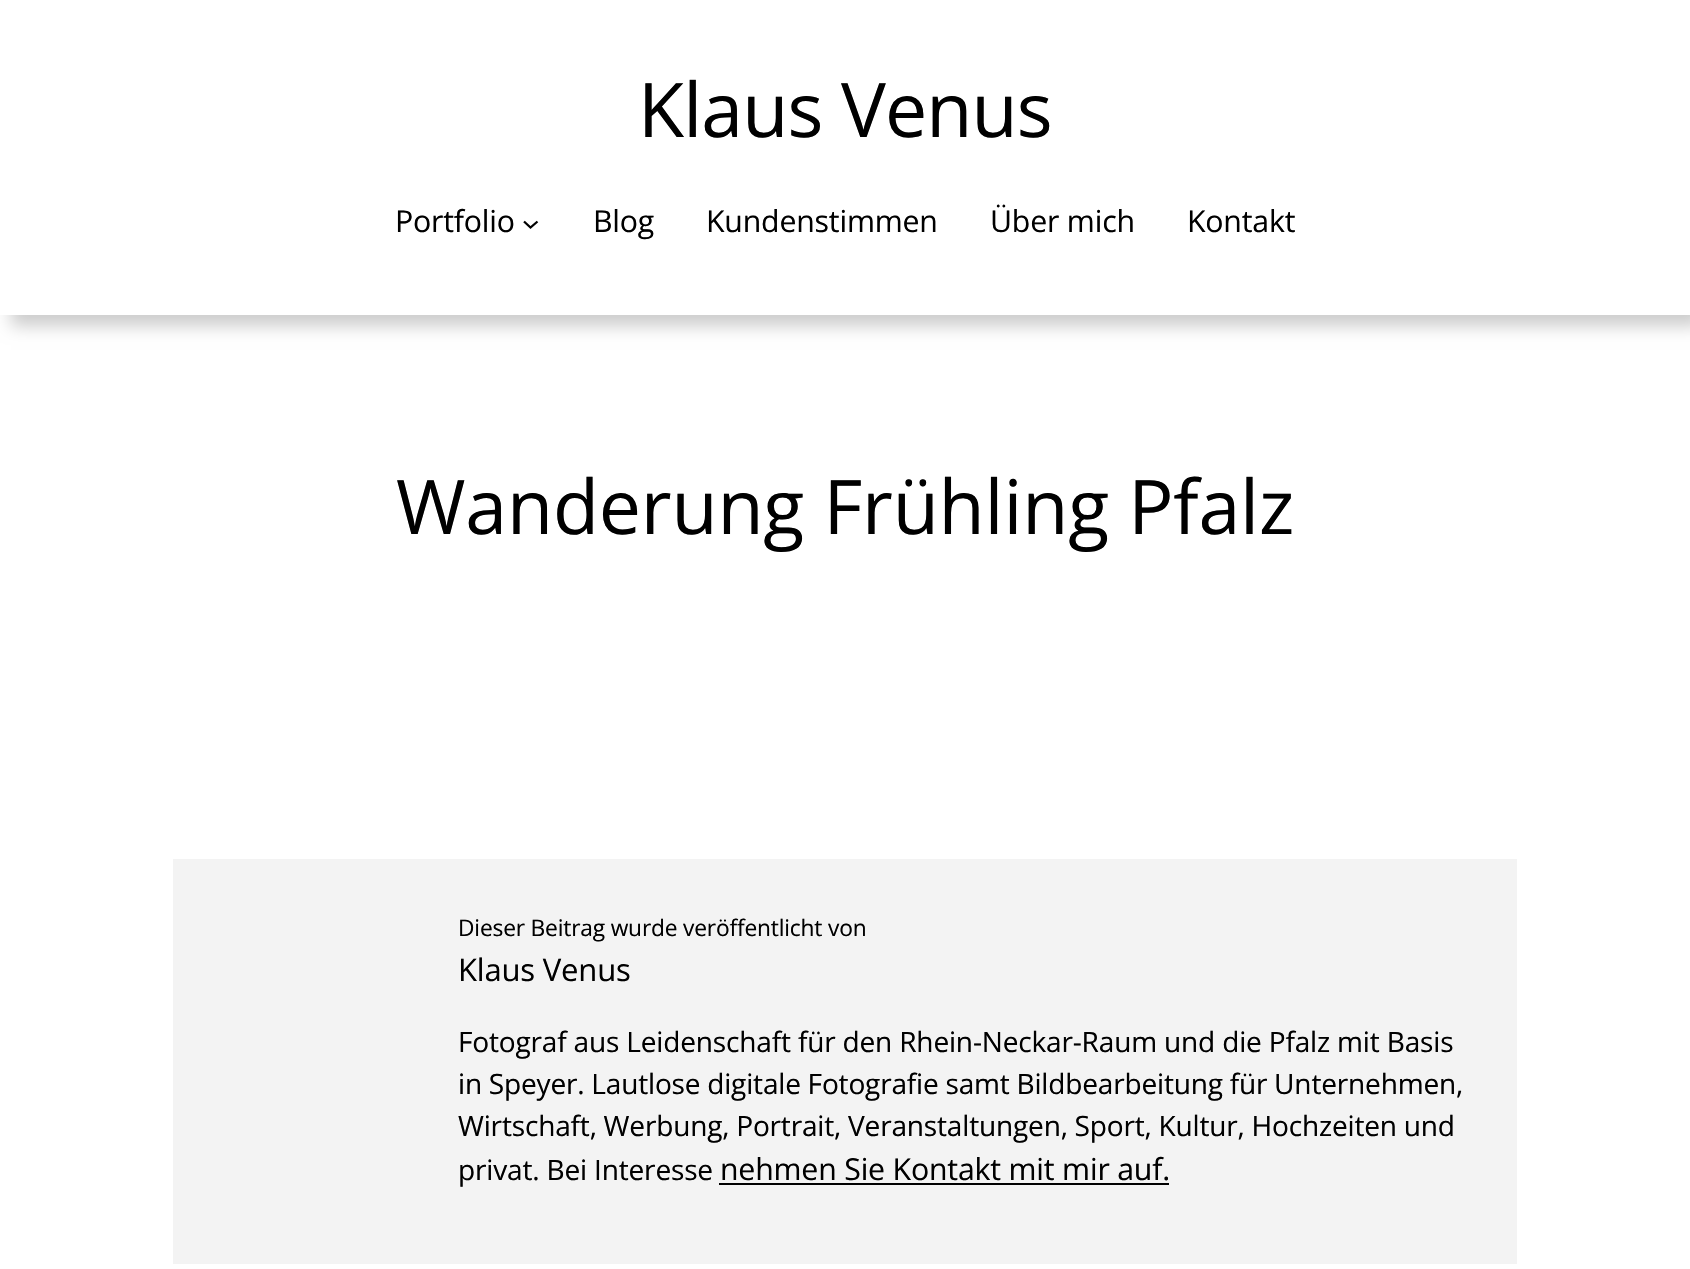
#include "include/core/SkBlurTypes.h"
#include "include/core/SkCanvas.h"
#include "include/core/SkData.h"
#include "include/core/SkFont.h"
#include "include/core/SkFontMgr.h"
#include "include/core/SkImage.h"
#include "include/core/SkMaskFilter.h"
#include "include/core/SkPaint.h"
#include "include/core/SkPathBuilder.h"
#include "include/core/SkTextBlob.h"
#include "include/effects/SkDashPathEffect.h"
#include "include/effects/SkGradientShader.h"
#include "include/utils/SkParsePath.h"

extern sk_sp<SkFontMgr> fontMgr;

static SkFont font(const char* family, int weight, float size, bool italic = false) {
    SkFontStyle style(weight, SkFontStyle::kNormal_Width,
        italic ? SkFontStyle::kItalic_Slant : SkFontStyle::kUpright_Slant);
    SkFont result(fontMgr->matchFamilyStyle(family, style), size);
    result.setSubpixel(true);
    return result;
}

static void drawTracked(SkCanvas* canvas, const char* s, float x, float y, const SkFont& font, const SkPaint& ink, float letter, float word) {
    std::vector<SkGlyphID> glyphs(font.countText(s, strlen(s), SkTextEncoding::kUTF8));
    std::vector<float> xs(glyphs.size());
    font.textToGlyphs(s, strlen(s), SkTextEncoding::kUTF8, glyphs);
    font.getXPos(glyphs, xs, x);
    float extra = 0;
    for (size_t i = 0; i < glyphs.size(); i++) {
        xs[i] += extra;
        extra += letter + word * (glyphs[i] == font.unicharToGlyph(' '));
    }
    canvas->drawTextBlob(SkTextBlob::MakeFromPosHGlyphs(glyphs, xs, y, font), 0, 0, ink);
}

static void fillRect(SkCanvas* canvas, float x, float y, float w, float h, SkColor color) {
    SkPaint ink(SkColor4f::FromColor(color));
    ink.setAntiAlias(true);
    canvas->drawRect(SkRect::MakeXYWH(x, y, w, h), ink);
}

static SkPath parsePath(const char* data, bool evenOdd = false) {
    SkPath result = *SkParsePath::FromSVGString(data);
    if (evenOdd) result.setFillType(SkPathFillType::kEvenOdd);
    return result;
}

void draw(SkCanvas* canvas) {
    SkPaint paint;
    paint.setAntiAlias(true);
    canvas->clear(0xFFFFFFFF);
    paint.setColor(0x33000000);
    paint.setMaskFilter(SkMaskFilter::MakeBlur(kNormal_SkBlurStyle, 8));
    canvas->drawRect(SkRect::MakeXYWH(11, 11, 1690, 315), paint);
    paint.setMaskFilter(nullptr);
    fillRect(canvas, 0, 0, 1690, 315, 0xFFFFFFFF);
    SkFont font1 = font("Open Sans", 400, 75.25f);
    paint.setColor(0xFF000000);
    drawTracked(canvas, "Klaus Venus", 638, 137, font1, paint, -0.9f, 0);
    SkFont font2 = font("Open Sans", 400, 30.25f);
    drawTracked(canvas, "Portfolio", 395, 232, font2, paint, -0.18f, 0);
    paint.setStroke(true);
    paint.setStrokeWidth(2.3f);
    canvas->drawPath(parsePath("M524 221.5L530.5 227.5L537.5 221.5"), paint);
    paint.setStroke(false);
    drawTracked(canvas, "Blog", 593, 232, font2, paint, -0.18f, 0);
    drawTracked(canvas, "Kundenstimmen", 706, 232, font2, paint, -0.18f, 0);
    drawTracked(canvas, "Über mich", 990, 232, font2, paint, -0.18f, 0);
    drawTracked(canvas, "Kontakt", 1187, 232, font2, paint, -0.18f, 0);
    drawTracked(canvas, "Wanderung Frühling Pfalz", 396, 534, font1, paint, -0.18f, 0);
    fillRect(canvas, 173, 859, 1344, 405, 0xFFF3F3F3);
    SkFont font3 = font("Open Sans", 400, 22.75f);
    drawTracked(canvas, "Dieser Beitrag wurde veröffentlicht von", 458, 936, font3, paint, -0.18f, 0);
    SkFont font4 = font("Open Sans", 400, 31);
    drawTracked(canvas, "Klaus Venus", 458, 981, font4, paint, -0.18f, 0);
    SkFont font5 = font("Open Sans", 400, 28.05f);
    drawTracked(canvas, "Fotograf aus Leidenschaft für den Rhein-Neckar-Raum und die Pfalz mit Basis", 458, 1052, font5, paint, -0.18f, 0);
    drawTracked(canvas, "in Speyer. Lautlose digitale Fotografie samt Bildbearbeitung für Unternehmen,", 458, 1094, font5, paint, -0.18f, -0.25f);
    drawTracked(canvas, "Wirtschaft, Werbung, Portrait, Veranstaltungen, Sport, Kultur, Hochzeiten und", 458, 1136, font5, paint, -0.18f, -0.25f);
    drawTracked(canvas, "privat. Bei Interesse", 458, 1180, font5, paint, -0.18f, 0);
    drawTracked(canvas, "nehmen Sie Kontakt mit mir auf.", 720, 1180, font2, paint, -0.18f, 0);
    fillRect(canvas, 719, 1183, 450, 2, 0xFF000000);
}
